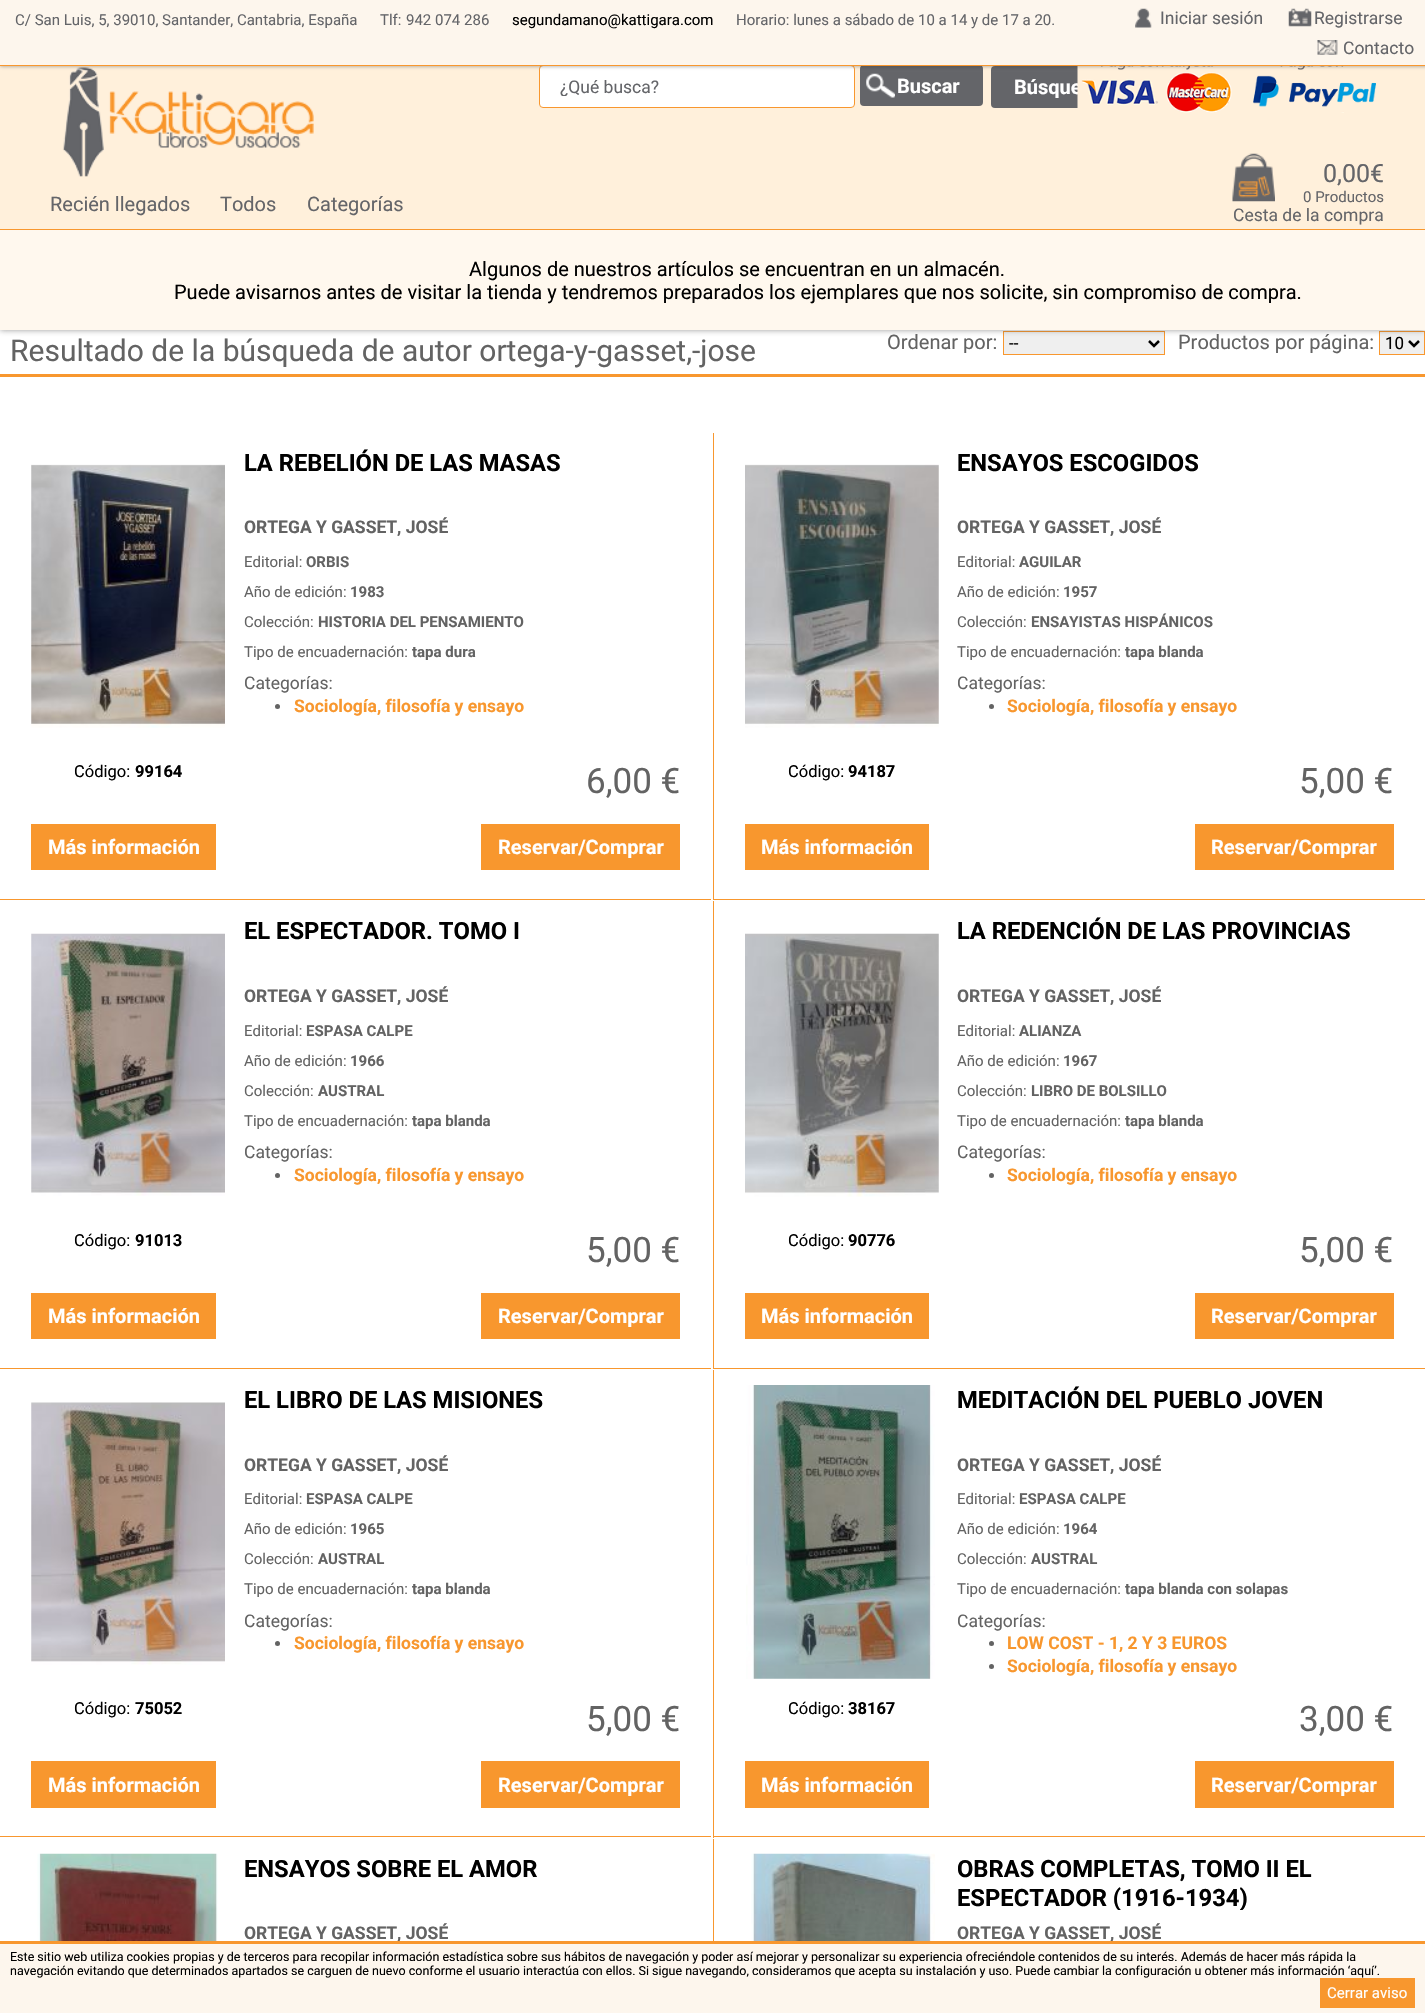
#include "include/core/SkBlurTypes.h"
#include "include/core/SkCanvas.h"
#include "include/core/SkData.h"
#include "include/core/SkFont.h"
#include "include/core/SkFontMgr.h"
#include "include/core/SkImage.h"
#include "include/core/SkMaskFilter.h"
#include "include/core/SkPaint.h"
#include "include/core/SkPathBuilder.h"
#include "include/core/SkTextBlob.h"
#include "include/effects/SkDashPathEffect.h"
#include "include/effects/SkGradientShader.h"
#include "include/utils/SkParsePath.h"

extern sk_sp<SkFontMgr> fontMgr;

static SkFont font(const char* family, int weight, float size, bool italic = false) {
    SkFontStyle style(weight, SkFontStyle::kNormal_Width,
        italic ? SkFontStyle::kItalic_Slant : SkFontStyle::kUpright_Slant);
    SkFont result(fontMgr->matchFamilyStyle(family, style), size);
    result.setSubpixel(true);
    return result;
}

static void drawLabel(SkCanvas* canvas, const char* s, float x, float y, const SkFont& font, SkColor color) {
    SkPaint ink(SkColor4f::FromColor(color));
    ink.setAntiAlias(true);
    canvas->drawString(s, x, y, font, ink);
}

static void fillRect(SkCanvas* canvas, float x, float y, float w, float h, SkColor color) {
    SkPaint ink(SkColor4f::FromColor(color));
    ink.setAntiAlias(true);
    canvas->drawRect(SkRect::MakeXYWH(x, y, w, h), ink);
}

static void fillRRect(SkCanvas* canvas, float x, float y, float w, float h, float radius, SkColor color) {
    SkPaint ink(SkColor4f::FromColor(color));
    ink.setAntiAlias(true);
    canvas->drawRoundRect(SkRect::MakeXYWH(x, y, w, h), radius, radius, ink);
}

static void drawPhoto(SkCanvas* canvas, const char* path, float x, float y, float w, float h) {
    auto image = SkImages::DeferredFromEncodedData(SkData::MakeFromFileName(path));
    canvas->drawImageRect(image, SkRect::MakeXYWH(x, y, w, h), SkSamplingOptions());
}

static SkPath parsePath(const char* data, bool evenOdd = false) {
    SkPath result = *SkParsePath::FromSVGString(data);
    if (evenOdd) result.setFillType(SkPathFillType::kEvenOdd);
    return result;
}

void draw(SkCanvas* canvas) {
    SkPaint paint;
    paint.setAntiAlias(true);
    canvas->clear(0xFFFFFFFF);
    paint.setColor(0xFFEFEFEF);
    canvas->drawRect(SkRect::MakeXYWH(1003.5f, 331.5f, 161, 23), paint);
    paint.setStroke(true);
    paint.setStrokeWidth(1);
    paint.setColor(0xFFF8972E);
    canvas->drawRect(SkRect::MakeXYWH(1003.5f, 331.5f, 161, 23), paint);
    paint.setStroke(false);
    paint.setColor(0xFFEFEFEF);
    canvas->drawRect(SkRect::MakeXYWH(1379.5f, 331.5f, 45, 23), paint);
    paint.setStroke(true);
    paint.setColor(0xFFF8972E);
    canvas->drawRect(SkRect::MakeXYWH(1379.5f, 331.5f, 45, 23), paint);
    paint.setStroke(false);
    paint.setColor(0x80323232);
    paint.setMaskFilter(SkMaskFilter::MakeBlur(kNormal_SkBlurStyle, 3));
    canvas->drawRect(SkRect::MakeXYWH(0, 0, 1425, 330), paint);
    paint.setMaskFilter(nullptr);
    fillRect(canvas, 0, 66, 1425, 163, 0xFFFFF0DB);
    drawPhoto(canvas, "assets/img4.png", 62, 67, 252, 110);
    paint.setColor(0xFFFFFFFF);
    canvas->drawRoundRect(SkRect::MakeXYWH(539.5f, 65.5f, 315, 42), 3.5f, 3.5f, paint);
    paint.setStroke(true);
    paint.setColor(0xFFF8972E);
    canvas->drawRoundRect(SkRect::MakeXYWH(539.5f, 65.5f, 315, 42), 3.5f, 3.5f, paint);
    fillRRect(canvas, 860, 65, 123, 41, 4, 0xFF646569);
    fillRRect(canvas, 991, 66, 225, 42, 4, 0xFF646569);
    SkFont font1 = font("Roboto", 700, 20);
    drawLabel(canvas, "Búsque", 1014, 94, font1, 0xFFFFFFFF);
    drawPhoto(canvas, "assets/img6.png", 1077, 66, 155, 47);
    drawPhoto(canvas, "assets/img7.png", 1253, 66, 123, 47);
    paint.setStroke(false);
    paint.setColor(0x80323232);
    paint.setMaskFilter(SkMaskFilter::MakeBlur(kNormal_SkBlurStyle, 2));
    canvas->drawRect(SkRect::MakeXYWH(0, 0, 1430, 66), paint);
    paint.setMaskFilter(nullptr);
    fillRect(canvas, 0, 0, 1425, 65, 0xFFFDF6ED);
    fillRect(canvas, 0, 65, 1425, 1, 0xFFF8972E);
    SkFont font2 = font("Roboto", 400, 15);
    drawLabel(canvas, "C/ San Luis, 5, 39010, Santander, Cantabria, España", 15, 25, font2, 0xFF646569);
    drawLabel(canvas, "Tlf:", 380, 25, font2, 0xFF646569);
    drawLabel(canvas, "942 074 286", 406, 25, font2, 0xFF646569);
    drawLabel(canvas, "segundamano@kattigara.com", 512, 25, font2, 0xFF000000);
    drawLabel(canvas, "Horario: lunes a sábado de 10 a 14 y de 17 a 20.", 736, 25, font2, 0xFF646569);
    drawPhoto(canvas, "assets/img1.png", 1135, 8, 17, 20);
    SkFont font3 = font("Roboto", 400, 17.5f);
    drawLabel(canvas, "Iniciar sesión", 1160, 24, font3, 0xFF646569);
    drawPhoto(canvas, "assets/img2.png", 1288, 8, 24, 19);
    drawLabel(canvas, "Registrarse", 1314, 24, font3, 0xFF646569);
    drawPhoto(canvas, "assets/img3.png", 1317, 40, 21, 15);
    drawLabel(canvas, "Contacto", 1343, 54, font3, 0xFF646569);
    canvas->save();
    canvas->clipRect(SkRect::MakeXYWH(560, 76, 256, 20));
    drawLabel(canvas, "¿Qué busca?", 560, 93, font3, 0xFF646569);
    canvas->restore();
    drawPhoto(canvas, "assets/img5.png", 866, 73, 29, 25);
    drawLabel(canvas, "Buscar", 897, 93, font1, 0xFFFFFFFF);
    SkFont font4 = font("Roboto", 400, 20);
    drawLabel(canvas, "Recién llegados", 50, 211, font4, 0xFF646569);
    drawLabel(canvas, "Todos", 220, 211, font4, 0xFF646569);
    drawLabel(canvas, "Categorías", 307, 211, font4, 0xFF646569);
    drawPhoto(canvas, "assets/img8.png", 1232, 153, 43, 49);
    SkFont font5 = font("Roboto", 400, 25);
    drawLabel(canvas, "0,00€", 1323, 182, font5, 0xFF646569);
    drawLabel(canvas, "0 Productos", 1303, 202, font2, 0xFF646569);
    drawLabel(canvas, "Cesta de la compra", 1233, 221, font3, 0xFF646569);
    fillRect(canvas, 0, 230, 1425, 100, 0xFFFFF8EE);
    fillRect(canvas, 0, 229, 1425, 1, 0xFFF8972E);
    drawLabel(canvas, "Algunos de nuestros artículos se encuentran en un almacén.", 469, 276, font4, 0xFF000000);
    drawLabel(canvas, "Puede avisarnos antes de visitar la tienda y tendremos preparados los ejemplares que nos solicite, sin compromiso de compra.", 174, 299, font4, 0xFF000000);
    fillRect(canvas, 0, 374, 1425, 3, 0xFFF8972E);
    SkFont font6 = font("Roboto", 400, 30);
    drawLabel(canvas, "Resultado de la búsqueda de autor ortega-y-gasset,-jose", 10, 361, font6, 0xFF636363);
    drawLabel(canvas, "Ordenar por:", 887, 349, font4, 0xFF636363);
    paint.setStroke(true);
    paint.setStrokeWidth(2.5f);
    paint.setColor(0xFF000000);
    canvas->drawPath(parsePath("M1149 341L1154 346L1159 341"), paint);
    SkFont font7 = font("Roboto", 400, 17);
    drawLabel(canvas, "--", 1009, 349, font7, 0xFF000000);
    drawLabel(canvas, "Productos por página:", 1178, 349, font4, 0xFF636363);
    canvas->drawPath(parsePath("M1409 341L1414 346L1419 341"), paint);
    drawLabel(canvas, "10", 1385, 349, font7, 0xFF000000);
    fillRect(canvas, 0, 899, 711, 1, 0xFFF8972E);
    drawPhoto(canvas, "assets/img9.png", 31, 464, 194, 264);
    SkFont font8 = font("Roboto", 400, 16.5f);
    drawLabel(canvas, "Código:", 74, 777, font8, 0xFF000000);
    SkFont font9 = font("Roboto", 700, 16.5f);
    drawLabel(canvas, "99164", 135, 777, font9, 0xFF000000);
    SkFont font10 = font("Roboto", 700, 23.75f);
    drawLabel(canvas, "LA REBELIÓN DE LAS MASAS", 244, 471, font10, 0xFF000000);
    SkFont font11 = font("Roboto", 700, 17.5f);
    drawLabel(canvas, "ORTEGA Y GASSET, JOSÉ", 244, 533, font11, 0xFF636363);
    drawLabel(canvas, "Editorial:", 244, 567, font2, 0xFF636363);
    SkFont font12 = font("Roboto", 700, 15);
    drawLabel(canvas, "ORBIS", 306, 567, font12, 0xFF636363);
    drawLabel(canvas, "Año de edición:", 244, 597, font2, 0xFF636363);
    drawLabel(canvas, "1983", 350, 597, font12, 0xFF636363);
    drawLabel(canvas, "Colección:", 244, 627, font2, 0xFF636363);
    drawLabel(canvas, "HISTORIA DEL PENSAMIENTO", 318, 627, font12, 0xFF636363);
    drawLabel(canvas, "Tipo de encuadernación:", 244, 657, font2, 0xFF636363);
    drawLabel(canvas, "tapa dura", 412, 657, font12, 0xFF636363);
    drawLabel(canvas, "Categorías:", 244, 689, font3, 0xFF636363);
    paint.setStroke(false);
    paint.setColor(0xFF636363);
    canvas->drawCircle(277.5f, 706.5f, 2.5f, paint);
    drawLabel(canvas, "Sociología, filosofía y ensayo", 294, 712, font11, 0xFFF8972E);
    SkFont font13 = font("Roboto", 400, 35);
    drawLabel(canvas, "6,00 €", 586, 793, font13, 0xFF636363);
    fillRect(canvas, 31, 824, 185, 46, 0xFFF8972E);
    drawLabel(canvas, "Más información", 48, 854, font1, 0xFFFFFFFF);
    fillRect(canvas, 481, 824, 199, 46, 0xFFF8972E);
    drawLabel(canvas, "Reservar/Comprar", 498, 854, font1, 0xFFFFFFFF);
    fillRect(canvas, 713, 899, 712, 1, 0xFFF8972E);
    fillRect(canvas, 713, 433, 1, 467, 0xFFF8972E);
    drawPhoto(canvas, "assets/img10.png", 745, 464, 194, 264);
    drawLabel(canvas, "Código:", 788, 777, font8, 0xFF000000);
    drawLabel(canvas, "94187", 848, 777, font9, 0xFF000000);
    drawLabel(canvas, "ENSAYOS ESCOGIDOS", 957, 471, font10, 0xFF000000);
    drawLabel(canvas, "ORTEGA Y GASSET, JOSÉ", 957, 533, font11, 0xFF636363);
    drawLabel(canvas, "Editorial:", 957, 567, font2, 0xFF636363);
    drawLabel(canvas, "AGUILAR", 1019, 567, font12, 0xFF636363);
    drawLabel(canvas, "Año de edición:", 957, 597, font2, 0xFF636363);
    drawLabel(canvas, "1957", 1063, 597, font12, 0xFF636363);
    drawLabel(canvas, "Colección:", 957, 627, font2, 0xFF636363);
    drawLabel(canvas, "ENSAYISTAS HISPÁNICOS", 1031, 627, font12, 0xFF636363);
    drawLabel(canvas, "Tipo de encuadernación:", 957, 657, font2, 0xFF636363);
    drawLabel(canvas, "tapa blanda", 1125, 657, font12, 0xFF636363);
    drawLabel(canvas, "Categorías:", 957, 689, font3, 0xFF636363);
    canvas->drawCircle(991.5f, 706.5f, 2.5f, paint);
    drawLabel(canvas, "Sociología, filosofía y ensayo", 1007, 712, font11, 0xFFF8972E);
    drawLabel(canvas, "5,00 €", 1299, 793, font13, 0xFF636363);
    fillRect(canvas, 745, 824, 184, 46, 0xFFF8972E);
    drawLabel(canvas, "Más información", 761, 854, font1, 0xFFFFFFFF);
    fillRect(canvas, 1195, 824, 199, 46, 0xFFF8972E);
    drawLabel(canvas, "Reservar/Comprar", 1211, 854, font1, 0xFFFFFFFF);
    fillRect(canvas, 0, 1368, 711, 1, 0xFFF8972E);
    drawPhoto(canvas, "assets/img11.png", 31, 933, 194, 263);
    drawLabel(canvas, "Código:", 74, 1246, font8, 0xFF000000);
    drawLabel(canvas, "91013", 135, 1246, font9, 0xFF000000);
    drawLabel(canvas, "EL ESPECTADOR. TOMO I", 244, 939, font10, 0xFF000000);
    drawLabel(canvas, "ORTEGA Y GASSET, JOSÉ", 244, 1002, font11, 0xFF636363);
    drawLabel(canvas, "Editorial:", 244, 1036, font2, 0xFF636363);
    drawLabel(canvas, "ESPASA CALPE", 306, 1036, font12, 0xFF636363);
    drawLabel(canvas, "Año de edición:", 244, 1066, font2, 0xFF636363);
    drawLabel(canvas, "1966", 350, 1066, font12, 0xFF636363);
    drawLabel(canvas, "Colección:", 244, 1096, font2, 0xFF636363);
    drawLabel(canvas, "AUSTRAL", 318, 1096, font12, 0xFF636363);
    drawLabel(canvas, "Tipo de encuadernación:", 244, 1126, font2, 0xFF636363);
    drawLabel(canvas, "tapa blanda", 412, 1126, font12, 0xFF636363);
    drawLabel(canvas, "Categorías:", 244, 1158, font3, 0xFF636363);
    canvas->drawCircle(277.5f, 1175.5f, 2.5f, paint);
    drawLabel(canvas, "Sociología, filosofía y ensayo", 294, 1181, font11, 0xFFF8972E);
    drawLabel(canvas, "5,00 €", 586, 1262, font13, 0xFF636363);
    fillRect(canvas, 31, 1293, 185, 46, 0xFFF8972E);
    drawLabel(canvas, "Más información", 48, 1323, font1, 0xFFFFFFFF);
    fillRect(canvas, 481, 1293, 199, 46, 0xFFF8972E);
    drawLabel(canvas, "Reservar/Comprar", 498, 1323, font1, 0xFFFFFFFF);
    fillRect(canvas, 713, 1368, 712, 1, 0xFFF8972E);
    fillRect(canvas, 713, 901, 1, 468, 0xFFF8972E);
    drawPhoto(canvas, "assets/img12.png", 745, 933, 194, 264);
    drawLabel(canvas, "Código:", 788, 1246, font8, 0xFF000000);
    drawLabel(canvas, "90776", 848, 1246, font9, 0xFF000000);
    drawLabel(canvas, "LA REDENCIÓN DE LAS PROVINCIAS", 957, 939, font10, 0xFF000000);
    drawLabel(canvas, "ORTEGA Y GASSET, JOSÉ", 957, 1002, font11, 0xFF636363);
    drawLabel(canvas, "Editorial:", 957, 1036, font2, 0xFF636363);
    drawLabel(canvas, "ALIANZA", 1019, 1036, font12, 0xFF636363);
    drawLabel(canvas, "Año de edición:", 957, 1066, font2, 0xFF636363);
    drawLabel(canvas, "1967", 1063, 1066, font12, 0xFF636363);
    drawLabel(canvas, "Colección:", 957, 1096, font2, 0xFF636363);
    drawLabel(canvas, "LIBRO DE BOLSILLO", 1031, 1096, font12, 0xFF636363);
    drawLabel(canvas, "Tipo de encuadernación:", 957, 1126, font2, 0xFF636363);
    drawLabel(canvas, "tapa blanda", 1125, 1126, font12, 0xFF636363);
    drawLabel(canvas, "Categorías:", 957, 1158, font3, 0xFF636363);
    canvas->drawCircle(991.5f, 1175.5f, 2.5f, paint);
    drawLabel(canvas, "Sociología, filosofía y ensayo", 1007, 1181, font11, 0xFFF8972E);
    drawLabel(canvas, "5,00 €", 1299, 1262, font13, 0xFF636363);
    fillRect(canvas, 745, 1293, 184, 46, 0xFFF8972E);
    drawLabel(canvas, "Más información", 761, 1323, font1, 0xFFFFFFFF);
    fillRect(canvas, 1195, 1293, 199, 46, 0xFFF8972E);
    drawLabel(canvas, "Reservar/Comprar", 1211, 1323, font1, 0xFFFFFFFF);
    fillRect(canvas, 0, 1836, 711, 1, 0xFFF8972E);
    drawPhoto(canvas, "assets/img13.png", 31, 1402, 194, 263);
    drawLabel(canvas, "Código:", 74, 1714, font8, 0xFF000000);
    drawLabel(canvas, "75052", 135, 1714, font9, 0xFF000000);
    drawLabel(canvas, "EL LIBRO DE LAS MISIONES", 244, 1408, font10, 0xFF000000);
    drawLabel(canvas, "ORTEGA Y GASSET, JOSÉ", 244, 1471, font11, 0xFF636363);
    drawLabel(canvas, "Editorial:", 244, 1504, font2, 0xFF636363);
    drawLabel(canvas, "ESPASA CALPE", 306, 1504, font12, 0xFF636363);
    drawLabel(canvas, "Año de edición:", 244, 1534, font2, 0xFF636363);
    drawLabel(canvas, "1965", 350, 1534, font12, 0xFF636363);
    drawLabel(canvas, "Colección:", 244, 1564, font2, 0xFF636363);
    drawLabel(canvas, "AUSTRAL", 318, 1564, font12, 0xFF636363);
    drawLabel(canvas, "Tipo de encuadernación:", 244, 1594, font2, 0xFF636363);
    drawLabel(canvas, "tapa blanda", 412, 1594, font12, 0xFF636363);
    drawLabel(canvas, "Categorías:", 244, 1627, font3, 0xFF636363);
    canvas->drawCircle(277.5f, 1643.5f, 2.5f, paint);
    drawLabel(canvas, "Sociología, filosofía y ensayo", 294, 1649, font11, 0xFFF8972E);
    drawLabel(canvas, "5,00 €", 586, 1731, font13, 0xFF636363);
    fillRect(canvas, 31, 1761, 185, 47, 0xFFF8972E);
    drawLabel(canvas, "Más información", 48, 1792, font1, 0xFFFFFFFF);
    fillRect(canvas, 481, 1761, 199, 47, 0xFFF8972E);
    drawLabel(canvas, "Reservar/Comprar", 498, 1792, font1, 0xFFFFFFFF);
    fillRect(canvas, 713, 1836, 712, 1, 0xFFF8972E);
    fillRect(canvas, 713, 1370, 1, 468, 0xFFF8972E);
    drawPhoto(canvas, "assets/img14.png", 746, 1385, 189, 294);
    drawLabel(canvas, "Código:", 788, 1714, font8, 0xFF000000);
    drawLabel(canvas, "38167", 848, 1714, font9, 0xFF000000);
    drawLabel(canvas, "MEDITACIÓN DEL PUEBLO JOVEN", 957, 1408, font10, 0xFF000000);
    drawLabel(canvas, "ORTEGA Y GASSET, JOSÉ", 957, 1471, font11, 0xFF636363);
    drawLabel(canvas, "Editorial:", 957, 1504, font2, 0xFF636363);
    drawLabel(canvas, "ESPASA CALPE", 1019, 1504, font12, 0xFF636363);
    drawLabel(canvas, "Año de edición:", 957, 1534, font2, 0xFF636363);
    drawLabel(canvas, "1964", 1063, 1534, font12, 0xFF636363);
    drawLabel(canvas, "Colección:", 957, 1564, font2, 0xFF636363);
    drawLabel(canvas, "AUSTRAL", 1031, 1564, font12, 0xFF636363);
    drawLabel(canvas, "Tipo de encuadernación:", 957, 1594, font2, 0xFF636363);
    drawLabel(canvas, "tapa blanda con solapas", 1125, 1594, font12, 0xFF636363);
    drawLabel(canvas, "Categorías:", 957, 1627, font3, 0xFF636363);
    canvas->drawCircle(991.5f, 1643.5f, 2.5f, paint);
    drawLabel(canvas, "LOW COST - 1, 2 Y 3 EUROS", 1007, 1649, font11, 0xFFF8972E);
    canvas->drawCircle(991.5f, 1666.5f, 2.5f, paint);
    drawLabel(canvas, "Sociología, filosofía y ensayo", 1007, 1672, font11, 0xFFF8972E);
    drawLabel(canvas, "3,00 €", 1299, 1731, font13, 0xFF636363);
    fillRect(canvas, 745, 1761, 184, 47, 0xFFF8972E);
    drawLabel(canvas, "Más información", 761, 1792, font1, 0xFFFFFFFF);
    fillRect(canvas, 1195, 1761, 199, 47, 0xFFF8972E);
    drawLabel(canvas, "Reservar/Comprar", 1211, 1792, font1, 0xFFFFFFFF);
    drawPhoto(canvas, "assets/img15.png", 37, 1853, 181, 88);
    drawLabel(canvas, "ENSAYOS SOBRE EL AMOR", 244, 1877, font10, 0xFF000000);
    drawLabel(canvas, "ORTEGA Y GASSET, JOSÉ", 244, 1939, font11, 0xFF636363);
    fillRect(canvas, 713, 1839, 1, 102, 0xFFF8972E);
    drawPhoto(canvas, "assets/img16.png", 751, 1853, 184, 88);
    drawLabel(canvas, "OBRAS COMPLETAS, TOMO II EL", 957, 1877, font10, 0xFF000000);
    canvas->save();
    canvas->clipRect(SkRect::MakeXYWH(958, 1854, 442, 56));
    drawLabel(canvas, "ESPECTADOR (1916-1934)", 957, 1906, font10, 0xFF000000);
    canvas->restore();
    drawLabel(canvas, "ORTEGA Y GASSET, JOSÉ", 957, 1939, font11, 0xFF636363);
    fillRect(canvas, 0, 1944, 1425, 69, 0xFFFDF6ED);
    fillRect(canvas, 0, 1941, 1425, 3, 0xFFF8972E);
    SkFont font14 = font("Roboto", 400, 12.5f);
    drawLabel(canvas, "Este sitio web utiliza cookies propias y de terceros para recopilar información estadística sobre sus hábitos de navegación y poder así mejorar y personalizar su experiencia ofreciéndole contenidos de su interés. Además de hacer más rápida la", 10, 1961, font14, 0xFF000000);
    drawLabel(canvas, "navegación evitando que determinados apartados se carguen de nuevo conforme el usuario interactúa con ellos. Si sigue navegando, consideramos que acepta su instalación y uso. Puede cambiar la configuración u obtener más información ‘aquí’.", 10, 1975, font14, 0xFF000000);
    fillRect(canvas, 1320, 1978, 95, 30, 0xFFF8972E);
    drawLabel(canvas, "Cerrar aviso", 1327, 1998, font2, 0xFFFFFFFF);
}
